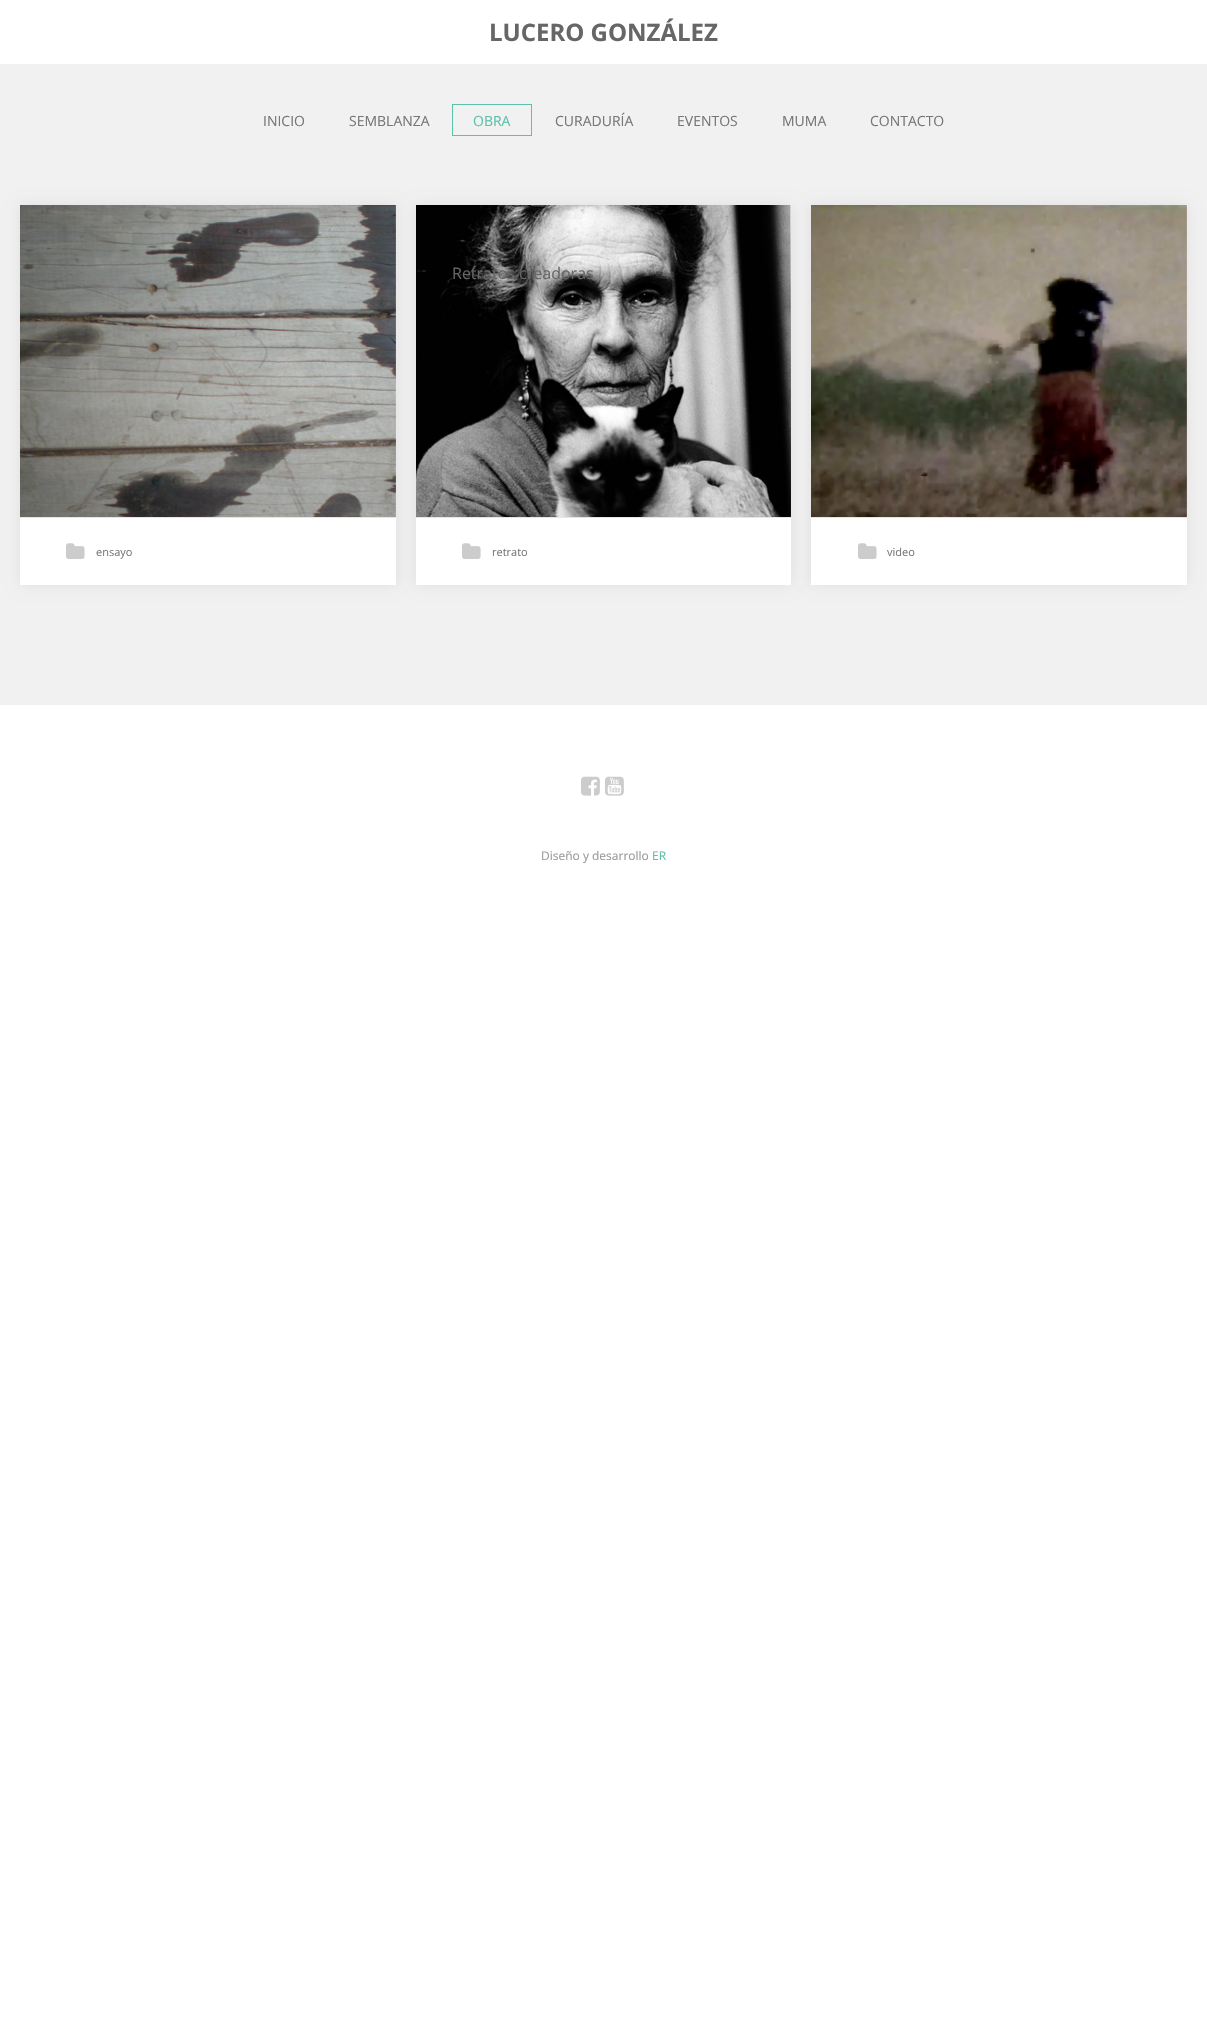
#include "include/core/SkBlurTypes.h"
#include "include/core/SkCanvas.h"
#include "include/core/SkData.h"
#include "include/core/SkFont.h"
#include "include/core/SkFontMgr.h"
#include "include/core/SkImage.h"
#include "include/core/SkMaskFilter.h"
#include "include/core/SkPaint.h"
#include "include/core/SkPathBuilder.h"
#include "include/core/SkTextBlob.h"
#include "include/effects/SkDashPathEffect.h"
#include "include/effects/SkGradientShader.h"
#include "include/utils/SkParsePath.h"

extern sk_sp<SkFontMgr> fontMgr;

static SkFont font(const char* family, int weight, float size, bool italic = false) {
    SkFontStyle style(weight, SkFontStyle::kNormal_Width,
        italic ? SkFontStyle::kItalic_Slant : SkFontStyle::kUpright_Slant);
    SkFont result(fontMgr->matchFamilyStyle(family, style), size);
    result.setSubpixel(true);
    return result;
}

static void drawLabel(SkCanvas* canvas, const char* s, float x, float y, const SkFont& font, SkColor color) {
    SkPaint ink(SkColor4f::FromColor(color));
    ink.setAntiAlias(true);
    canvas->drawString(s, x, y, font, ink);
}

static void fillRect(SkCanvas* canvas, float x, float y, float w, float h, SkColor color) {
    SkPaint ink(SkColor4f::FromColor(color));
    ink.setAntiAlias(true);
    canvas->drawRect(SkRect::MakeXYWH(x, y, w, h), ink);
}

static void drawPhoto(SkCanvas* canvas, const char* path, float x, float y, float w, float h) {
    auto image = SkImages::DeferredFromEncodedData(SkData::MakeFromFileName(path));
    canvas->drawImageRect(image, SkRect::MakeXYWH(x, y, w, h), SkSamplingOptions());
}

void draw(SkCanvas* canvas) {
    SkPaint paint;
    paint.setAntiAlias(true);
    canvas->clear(0xFFFFFFFF);
    SkFont font1 = font("Open Sans", 700, 24);
    drawLabel(canvas, "LUCERO GONZÁLEZ", 489, 41, font1, 0xFF666666);
    fillRect(canvas, 0, 64, 1207, 641, 0xFFF1F1F1);
    SkFont font2 = font("Open Sans", 400, 14);
    drawLabel(canvas, "INICIO", 263, 126, font2, 0xFF777777);
    drawLabel(canvas, "SEMBLANZA", 349, 126, font2, 0xFF777777);
    paint.setStroke(true);
    paint.setStrokeWidth(1);
    paint.setColor(0xFF5CC1A9);
    canvas->drawRect(SkRect::MakeXYWH(452.5f, 104.5f, 79, 31), paint);
    drawLabel(canvas, "OBRA", 473, 126, font2, 0xFF5CC1A9);
    drawLabel(canvas, "CURADURÍA", 555, 126, font2, 0xFF777777);
    drawLabel(canvas, "EVENTOS", 677, 126, font2, 0xFF777777);
    drawLabel(canvas, "MUMA", 782, 126, font2, 0xFF777777);
    drawLabel(canvas, "CONTACTO", 870, 126, font2, 0xFF777777);
    paint.setStroke(false);
    paint.setColor(0x12000000);
    paint.setMaskFilter(SkMaskFilter::MakeBlur(kNormal_SkBlurStyle, 6.5f));
    canvas->drawRect(SkRect::MakeXYWH(20, 205, 376, 380), paint);
    paint.setMaskFilter(nullptr);
    drawPhoto(canvas, "assets/img1.png", 20, 205, 376, 312);
    fillRect(canvas, 20, 518, 376, 67, 0xFFFFFFFF);
    fillRect(canvas, 20, 517, 376, 1, 0xFFE5E5E5);
    drawPhoto(canvas, "assets/img2.png", 66, 543, 19, 16);
    SkFont font3 = font("Open Sans", 400, 11);
    drawLabel(canvas, "ensayo", 96, 556, font3, 0xFF777777);
    paint.setMaskFilter(SkMaskFilter::MakeBlur(kNormal_SkBlurStyle, 6.5f));
    canvas->drawRect(SkRect::MakeXYWH(416, 205, 375, 380), paint);
    paint.setMaskFilter(nullptr);
    drawPhoto(canvas, "assets/img3.png", 416, 205, 375, 312);
    SkFont font4 = font("Open Sans", 400, 16);
    drawLabel(canvas, "Retratos creadoras", 452, 279, font4, 0xFF666666);
    fillRect(canvas, 416, 518, 375, 67, 0xFFFFFFFF);
    fillRect(canvas, 416, 517, 375, 1, 0xFFE5E5E5);
    drawPhoto(canvas, "assets/img2.png", 462, 543, 19, 16);
    drawLabel(canvas, "retrato", 492, 556, font3, 0xFF777777);
    paint.setMaskFilter(SkMaskFilter::MakeBlur(kNormal_SkBlurStyle, 6.5f));
    canvas->drawRect(SkRect::MakeXYWH(811, 205, 376, 380), paint);
    paint.setMaskFilter(nullptr);
    drawPhoto(canvas, "assets/img4.png", 811, 205, 376, 312);
    fillRect(canvas, 811, 518, 376, 67, 0xFFFFFFFF);
    fillRect(canvas, 811, 517, 376, 1, 0xFFE5E5E5);
    drawPhoto(canvas, "assets/img2.png", 858, 543, 19, 16);
    drawLabel(canvas, "video", 887, 556, font3, 0xFF777777);
    drawPhoto(canvas, "assets/img5.png", 581, 776, 19, 20);
    drawPhoto(canvas, "assets/img6.png", 605, 776, 19, 20);
    SkFont font5 = font("Open Sans", 400, 12);
    drawLabel(canvas, "Diseño y desarrollo", 541, 860, font5, 0xFF999999);
    drawLabel(canvas, "ER", 652, 860, font5, 0xFF5CC1A9);
}
